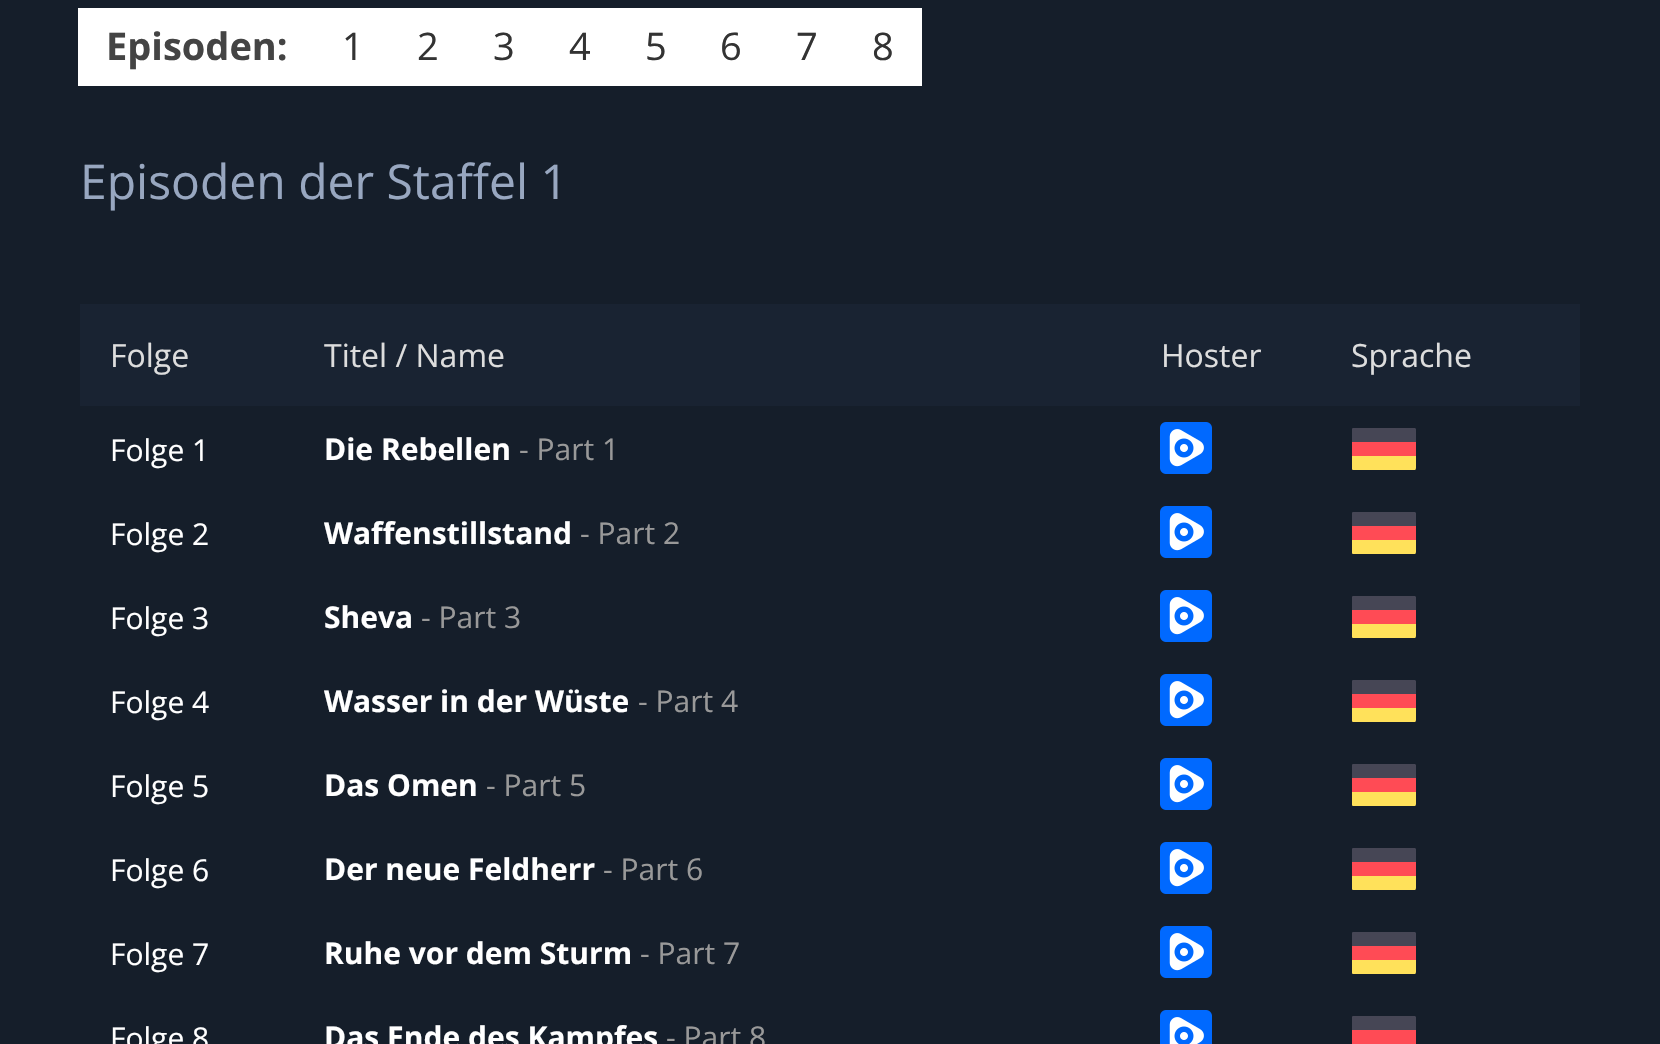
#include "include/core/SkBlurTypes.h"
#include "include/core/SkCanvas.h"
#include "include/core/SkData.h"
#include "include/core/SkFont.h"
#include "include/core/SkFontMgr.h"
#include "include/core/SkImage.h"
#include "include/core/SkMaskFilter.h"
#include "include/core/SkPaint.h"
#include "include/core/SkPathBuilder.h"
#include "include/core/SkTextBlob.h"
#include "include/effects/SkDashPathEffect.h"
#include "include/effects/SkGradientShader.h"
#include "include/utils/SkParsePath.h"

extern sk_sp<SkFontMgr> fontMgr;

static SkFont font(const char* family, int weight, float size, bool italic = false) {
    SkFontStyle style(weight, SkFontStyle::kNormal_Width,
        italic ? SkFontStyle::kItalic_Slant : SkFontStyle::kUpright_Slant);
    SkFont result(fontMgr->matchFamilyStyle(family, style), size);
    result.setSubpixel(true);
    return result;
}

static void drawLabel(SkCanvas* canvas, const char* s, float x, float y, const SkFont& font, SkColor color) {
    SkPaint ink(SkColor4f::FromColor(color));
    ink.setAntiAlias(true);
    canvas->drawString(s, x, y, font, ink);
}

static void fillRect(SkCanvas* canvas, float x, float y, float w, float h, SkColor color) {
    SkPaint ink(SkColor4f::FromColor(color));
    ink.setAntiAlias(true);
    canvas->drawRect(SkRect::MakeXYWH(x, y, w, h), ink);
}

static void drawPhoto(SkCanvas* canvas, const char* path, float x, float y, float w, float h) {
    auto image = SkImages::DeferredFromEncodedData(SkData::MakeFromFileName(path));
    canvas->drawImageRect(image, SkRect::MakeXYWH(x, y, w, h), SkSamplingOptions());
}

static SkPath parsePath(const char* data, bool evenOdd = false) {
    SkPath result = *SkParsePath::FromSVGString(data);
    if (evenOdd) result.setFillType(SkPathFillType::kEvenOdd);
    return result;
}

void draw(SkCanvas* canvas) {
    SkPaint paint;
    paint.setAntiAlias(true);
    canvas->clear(0xFF151E2A);
    fillRect(canvas, 78, 8, 844, 78, 0xFFFFFFFF);
    SkFont font1 = font("Open Sans", 700, 38);
    drawLabel(canvas, "Episoden:", 106, 60, font1, 0xFF444444);
    SkFont font2 = font("Open Sans", 400, 38);
    drawLabel(canvas, "1", 342, 60, font2, 0xFF333333);
    drawLabel(canvas, "2", 417, 60, font2, 0xFF333333);
    drawLabel(canvas, "3", 493, 60, font2, 0xFF333333);
    drawLabel(canvas, "4", 569, 60, font2, 0xFF333333);
    drawLabel(canvas, "5", 645, 60, font2, 0xFF333333);
    drawLabel(canvas, "6", 720, 60, font2, 0xFF333333);
    drawLabel(canvas, "7", 796, 60, font2, 0xFF333333);
    drawLabel(canvas, "8", 872, 60, font2, 0xFF333333);
    SkFont font3 = font("Open Sans", 400, 48);
    drawLabel(canvas, "Episoden der Staffel 1", 80, 199, font3, 0xFF98A7C0);
    fillRect(canvas, 80, 304, 1500, 102, 0xFF192332);
    SkFont font4 = font("Open Sans", 400, 32);
    drawLabel(canvas, "Folge", 110, 367, font4, 0xFFDDDDDD);
    drawLabel(canvas, "Titel / Name", 324, 367, font4, 0xFFDDDDDD);
    drawLabel(canvas, "Hoster", 1161, 367, font4, 0xFFDDDDDD);
    drawLabel(canvas, "Sprache", 1351, 367, font4, 0xFFDDDDDD);
    SkFont font5 = font("Open Sans", 400, 30);
    drawLabel(canvas, "Folge 1", 110, 461, font5, 0xFFFFFFFF);
    SkFont font6 = font("Open Sans", 700, 30);
    drawLabel(canvas, "Die Rebellen", 324, 460, font6, 0xFFFFFFFF);
    drawLabel(canvas, "- Part 1", 519, 460, font5, 0xFF999999);
    drawPhoto(canvas, "assets/img1.png", 1160, 422, 52, 52);
    paint.setColor(0xFF464655);
    canvas->drawPath(parsePath("M1416 442H1352V429C1352 428 1353 428 1353 428H1415C1415 428 1416 429 1416 429Z"), paint);
    canvas->save();
    canvas->clipRect(SkRect::MakeXYWH(1352, 428, 64, 42));
    paint.setColor(0xFFFFE15A);
    canvas->drawPath(parsePath("M1415 470H1374C1348 470 1352 476 1352 456H1416C1416 458 1417 470 1415 470Z"), paint);
    canvas->restore();
    fillRect(canvas, 1352, 442, 64, 14, 0xFFFF4B55);
    drawLabel(canvas, "Folge 2", 110, 545, font5, 0xFFFFFFFF);
    drawLabel(canvas, "Waffenstillstand", 324, 544, font6, 0xFFFFFFFF);
    drawLabel(canvas, "- Part 2", 580, 544, font5, 0xFF999999);
    drawPhoto(canvas, "assets/img1.png", 1160, 506, 52, 52);
    paint.setColor(0xFF464655);
    canvas->drawPath(parsePath("M1416 526H1352V513C1352 512 1353 512 1353 512H1415C1415 512 1416 513 1416 513Z"), paint);
    canvas->save();
    canvas->clipRect(SkRect::MakeXYWH(1352, 512, 64, 42));
    paint.setColor(0xFFFFE15A);
    canvas->drawPath(parsePath("M1415 554H1374C1348 554 1352 560 1352 540H1416C1416 542 1417 554 1415 554Z"), paint);
    canvas->restore();
    fillRect(canvas, 1352, 526, 64, 14, 0xFFFF4B55);
    drawLabel(canvas, "Folge 3", 110, 629, font5, 0xFFFFFFFF);
    drawLabel(canvas, "Sheva", 324, 628, font6, 0xFFFFFFFF);
    drawLabel(canvas, "- Part 3", 421, 628, font5, 0xFF999999);
    drawPhoto(canvas, "assets/img1.png", 1160, 590, 52, 52);
    paint.setColor(0xFF464655);
    canvas->drawPath(parsePath("M1416 610H1352V597C1352 596 1353 596 1353 596H1415C1415 596 1416 597 1416 597Z"), paint);
    canvas->save();
    canvas->clipRect(SkRect::MakeXYWH(1352, 596, 64, 42));
    paint.setColor(0xFFFFE15A);
    canvas->drawPath(parsePath("M1415 638H1374C1348 638 1352 644 1352 624H1416C1416 626 1417 638 1415 638Z"), paint);
    canvas->restore();
    fillRect(canvas, 1352, 610, 64, 14, 0xFFFF4B55);
    drawLabel(canvas, "Folge 4", 110, 713, font5, 0xFFFFFFFF);
    drawLabel(canvas, "Wasser in der Wüste", 324, 712, font6, 0xFFFFFFFF);
    drawLabel(canvas, "- Part 4", 638, 712, font5, 0xFF999999);
    drawPhoto(canvas, "assets/img1.png", 1160, 674, 52, 52);
    paint.setColor(0xFF464655);
    canvas->drawPath(parsePath("M1416 694H1352V681C1352 680 1353 680 1353 680H1415C1415 680 1416 681 1416 681Z"), paint);
    canvas->save();
    canvas->clipRect(SkRect::MakeXYWH(1352, 680, 64, 42));
    paint.setColor(0xFFFFE15A);
    canvas->drawPath(parsePath("M1415 722H1374C1348 722 1352 728 1352 708H1416C1416 710 1417 722 1415 722Z"), paint);
    canvas->restore();
    fillRect(canvas, 1352, 694, 64, 14, 0xFFFF4B55);
    drawLabel(canvas, "Folge 5", 110, 797, font5, 0xFFFFFFFF);
    drawLabel(canvas, "Das Omen", 324, 796, font6, 0xFFFFFFFF);
    drawLabel(canvas, "- Part 5", 486, 796, font5, 0xFF999999);
    drawPhoto(canvas, "assets/img1.png", 1160, 758, 52, 52);
    paint.setColor(0xFF464655);
    canvas->drawPath(parsePath("M1416 778H1352V765C1352 764 1353 764 1353 764H1415C1415 764 1416 765 1416 765Z"), paint);
    canvas->save();
    canvas->clipRect(SkRect::MakeXYWH(1352, 764, 64, 42));
    paint.setColor(0xFFFFE15A);
    canvas->drawPath(parsePath("M1415 806H1374C1348 806 1352 812 1352 792H1416C1416 794 1417 806 1415 806Z"), paint);
    canvas->restore();
    fillRect(canvas, 1352, 778, 64, 14, 0xFFFF4B55);
    drawLabel(canvas, "Folge 6", 110, 881, font5, 0xFFFFFFFF);
    drawLabel(canvas, "Der neue Feldherr", 324, 880, font6, 0xFFFFFFFF);
    drawLabel(canvas, "- Part 6", 603, 880, font5, 0xFF999999);
    drawPhoto(canvas, "assets/img1.png", 1160, 842, 52, 52);
    paint.setColor(0xFF464655);
    canvas->drawPath(parsePath("M1416 862H1352V849C1352 848 1353 848 1353 848H1415C1415 848 1416 849 1416 849Z"), paint);
    canvas->save();
    canvas->clipRect(SkRect::MakeXYWH(1352, 848, 64, 42));
    paint.setColor(0xFFFFE15A);
    canvas->drawPath(parsePath("M1415 890H1374C1348 890 1352 896 1352 876H1416C1416 878 1417 890 1415 890Z"), paint);
    canvas->restore();
    fillRect(canvas, 1352, 862, 64, 14, 0xFFFF4B55);
    drawLabel(canvas, "Folge 7", 110, 965, font5, 0xFFFFFFFF);
    drawLabel(canvas, "Ruhe vor dem Sturm", 324, 964, font6, 0xFFFFFFFF);
    drawLabel(canvas, "- Part 7", 640, 964, font5, 0xFF999999);
    drawPhoto(canvas, "assets/img1.png", 1160, 926, 52, 52);
    paint.setColor(0xFF464655);
    canvas->drawPath(parsePath("M1416 946H1352V933C1352 932 1353 932 1353 932H1415C1415 932 1416 933 1416 933Z"), paint);
    canvas->save();
    canvas->clipRect(SkRect::MakeXYWH(1352, 932, 64, 42));
    paint.setColor(0xFFFFE15A);
    canvas->drawPath(parsePath("M1415 974H1374C1348 974 1352 980 1352 960H1416C1416 962 1417 974 1415 974Z"), paint);
    canvas->restore();
    fillRect(canvas, 1352, 946, 64, 14, 0xFFFF4B55);
    drawLabel(canvas, "Folge 8", 110, 1049, font5, 0xFFFFFFFF);
    drawLabel(canvas, "Das Ende des Kampfes", 324, 1048, font6, 0xFFFFFFFF);
    drawLabel(canvas, "- Part 8", 666, 1048, font5, 0xFF999999);
    drawPhoto(canvas, "assets/img2.png", 1160, 1010, 52, 34);
    paint.setColor(0xFF464655);
    canvas->drawPath(parsePath("M1416 1030H1352V1017C1352 1016 1353 1016 1353 1016H1415C1415 1016 1416 1017 1416 1017Z"), paint);
    fillRect(canvas, 1352, 1030, 64, 14, 0xFFFF4B55);
}
